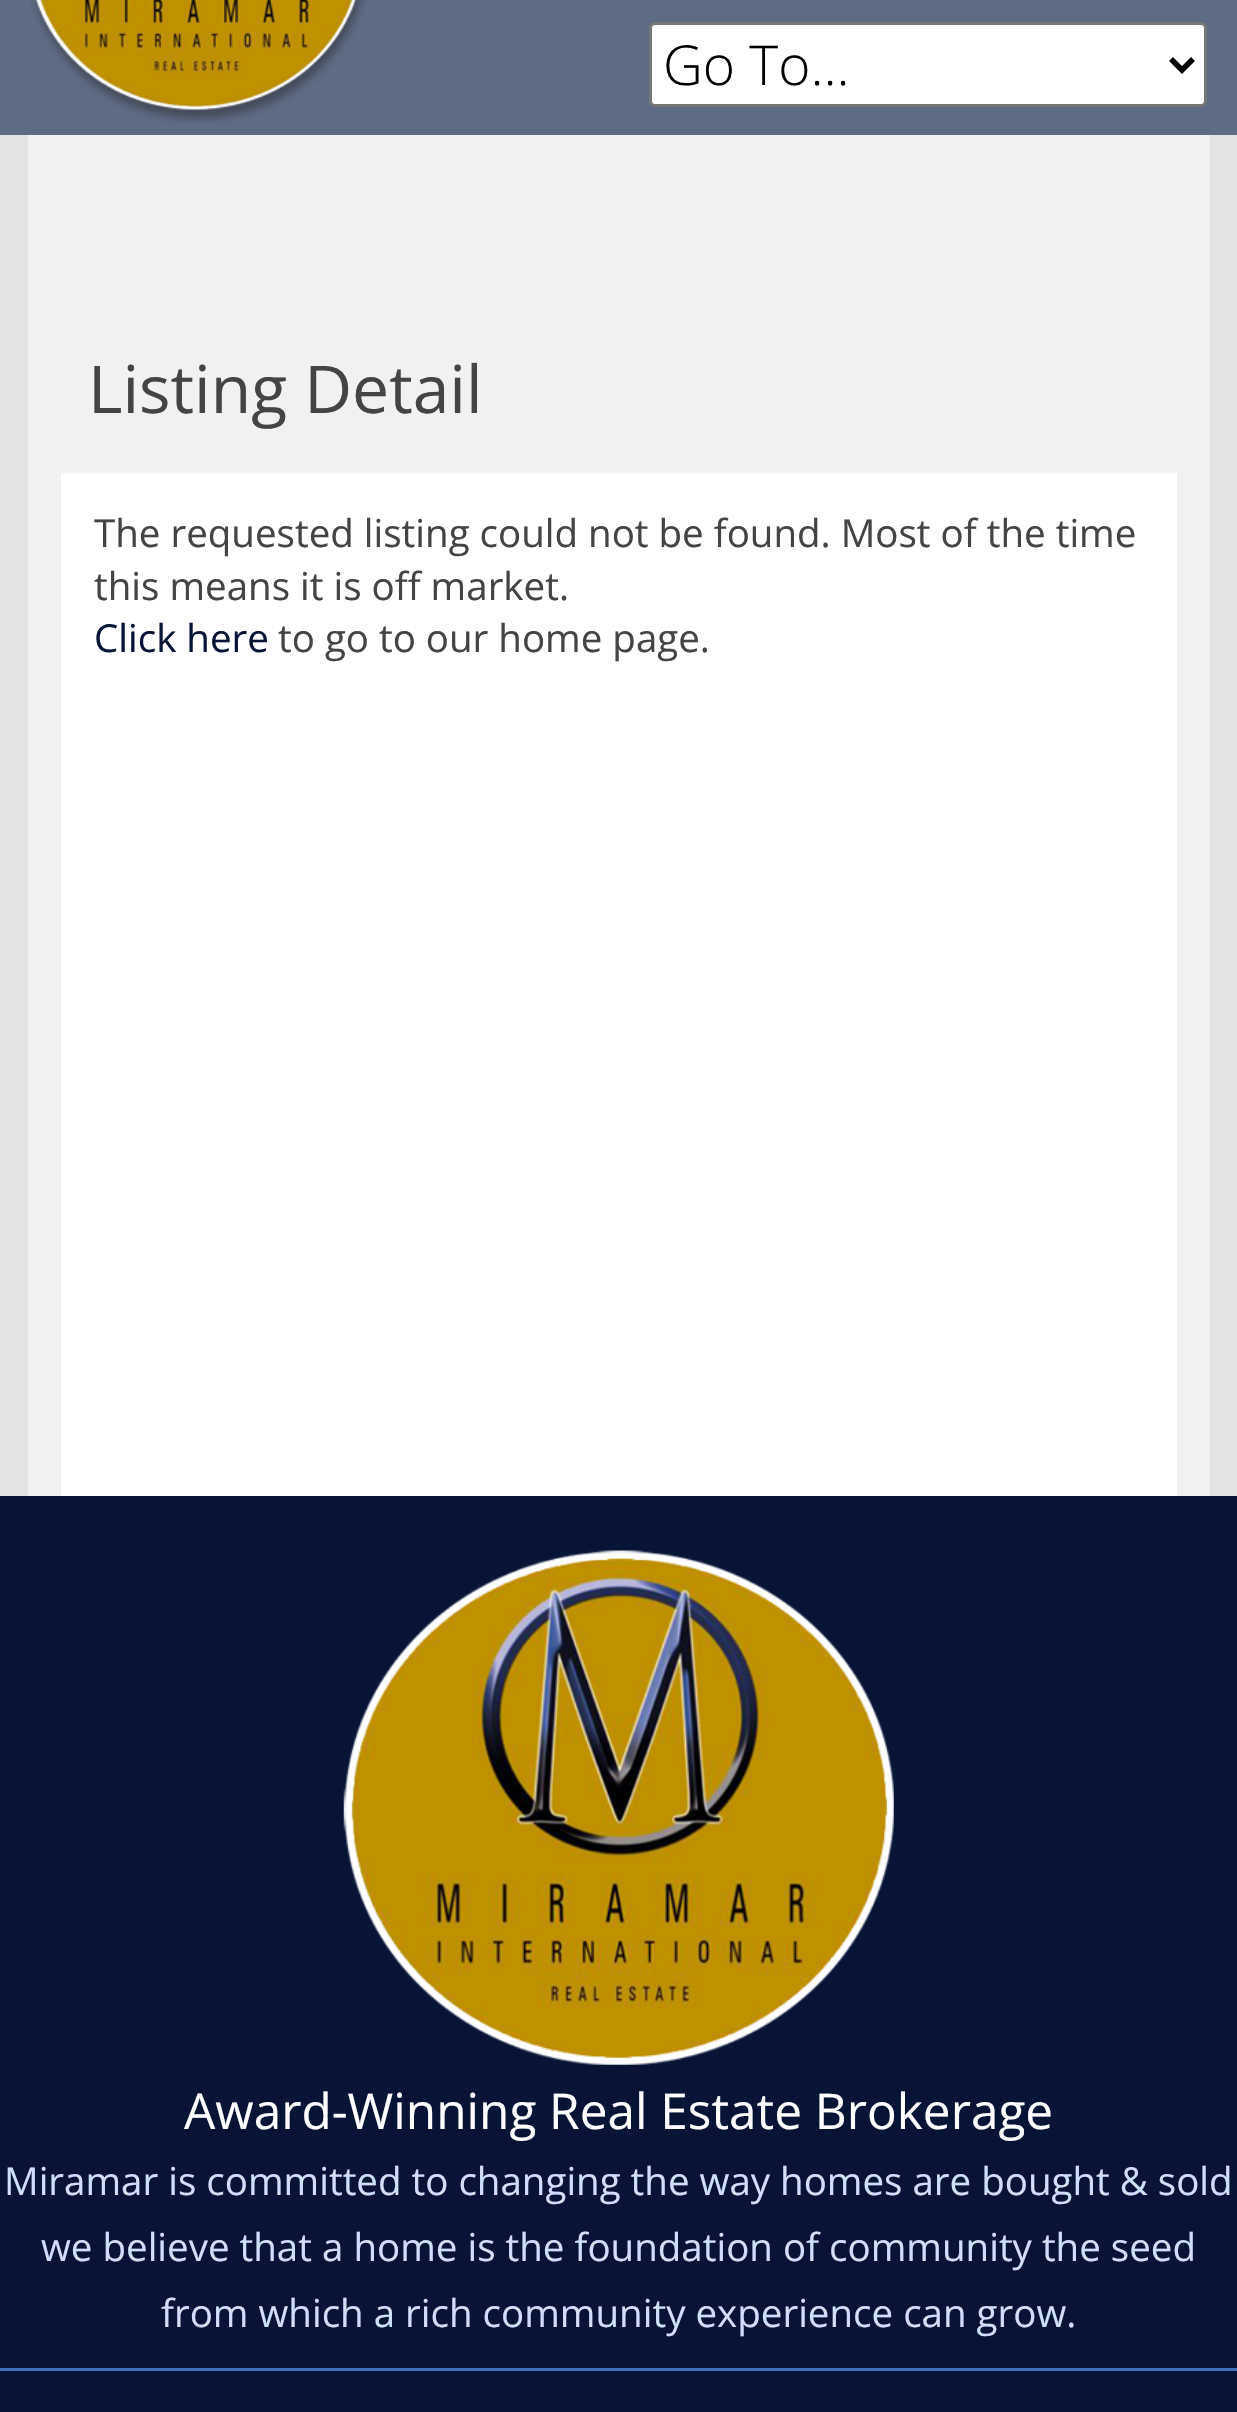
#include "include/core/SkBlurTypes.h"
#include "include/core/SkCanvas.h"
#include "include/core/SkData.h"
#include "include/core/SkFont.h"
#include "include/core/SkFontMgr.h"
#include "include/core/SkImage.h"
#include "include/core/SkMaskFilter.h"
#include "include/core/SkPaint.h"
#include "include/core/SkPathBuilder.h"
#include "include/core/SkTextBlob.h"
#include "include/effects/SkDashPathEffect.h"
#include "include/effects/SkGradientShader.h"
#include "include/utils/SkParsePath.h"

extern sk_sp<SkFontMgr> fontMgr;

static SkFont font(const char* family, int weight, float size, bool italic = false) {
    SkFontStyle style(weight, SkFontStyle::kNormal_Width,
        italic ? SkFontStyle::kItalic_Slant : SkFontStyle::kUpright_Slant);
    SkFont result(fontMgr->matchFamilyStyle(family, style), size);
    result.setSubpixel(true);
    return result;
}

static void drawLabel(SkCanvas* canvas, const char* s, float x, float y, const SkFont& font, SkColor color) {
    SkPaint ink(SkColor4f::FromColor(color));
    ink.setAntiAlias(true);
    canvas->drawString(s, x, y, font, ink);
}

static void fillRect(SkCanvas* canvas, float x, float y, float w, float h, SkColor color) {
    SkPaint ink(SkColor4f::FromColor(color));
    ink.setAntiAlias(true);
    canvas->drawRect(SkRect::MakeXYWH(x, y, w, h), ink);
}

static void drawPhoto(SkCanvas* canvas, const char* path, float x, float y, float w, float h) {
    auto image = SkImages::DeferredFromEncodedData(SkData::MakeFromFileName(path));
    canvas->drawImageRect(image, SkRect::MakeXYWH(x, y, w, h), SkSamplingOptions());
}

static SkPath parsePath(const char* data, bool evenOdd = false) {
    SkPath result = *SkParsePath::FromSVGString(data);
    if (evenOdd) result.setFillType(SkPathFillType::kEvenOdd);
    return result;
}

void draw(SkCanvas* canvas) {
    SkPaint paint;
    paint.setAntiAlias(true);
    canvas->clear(0xFFE3E3E3);
    fillRect(canvas, 0, 0, 1237, 135, 0xFF5D6B84);
    drawPhoto(canvas, "assets/img1.png", 30, 0, 336, 124);
    paint.setColor(0xFFFFFFFF);
    canvas->drawRoundRect(SkRect::MakeXYWH(650.5f, 23.5f, 555, 82), 4.5f, 4.5f, paint);
    paint.setStroke(true);
    paint.setStrokeWidth(3);
    paint.setColor(0xFF767676);
    canvas->drawRoundRect(SkRect::MakeXYWH(650.5f, 23.5f, 555, 82), 4.5f, 4.5f, paint);
    paint.setStrokeWidth(5.5f);
    paint.setColor(0xFF000000);
    canvas->drawPath(parsePath("M1171 59L1182 70L1193 59"), paint);
    SkFont font1 = font("Open Sans", 300, 55);
    drawLabel(canvas, "Go To...", 663, 85, font1, 0xFF000000);
    fillRect(canvas, 28, 135, 1182, 1361, 0xFFF1F1F1);
    SkFont font2 = font("Open Sans", 400, 66);
    drawLabel(canvas, "Listing Detail", 88, 413, font2, 0xFF444444);
    fillRect(canvas, 61, 473, 1116, 1023, 0xFFFFFFFF);
    SkFont font3 = font("Open Sans", 400, 38.5f);
    drawLabel(canvas, "The requested listing could not be found. Most of the time", 94, 547, font3, 0xFF444444);
    drawLabel(canvas, "this means it is off market.", 94, 600, font3, 0xFF444444);
    drawLabel(canvas, "Click here", 94, 652, font3, 0xFF071436);
    drawLabel(canvas, "to go to our home page.", 278, 652, font3, 0xFF444444);
    fillRect(canvas, 0, 1496, 1237, 916, 0xFF071436);
    drawPhoto(canvas, "assets/img2.png", 343, 1550, 551, 515);
    fillRect(canvas, 0, 2368, 1237, 3, 0xFF416DBB);
    SkFont font4 = font("Open Sans", 400, 49.5f);
    drawLabel(canvas, "Award-Winning Real Estate Brokerage", 184, 2129, font4, 0xFFFFFFFF);
    drawLabel(canvas, "Miramar is committed to changing the way homes are bought & sold", 4, 2195, font3, 0xFFCEDEFB);
    drawLabel(canvas, "we believe that a home is the foundation of community the seed", 41, 2261, font3, 0xFFCEDEFB);
    drawLabel(canvas, "from which a rich community experience can grow.", 161, 2327, font3, 0xFFCEDEFB);
}
